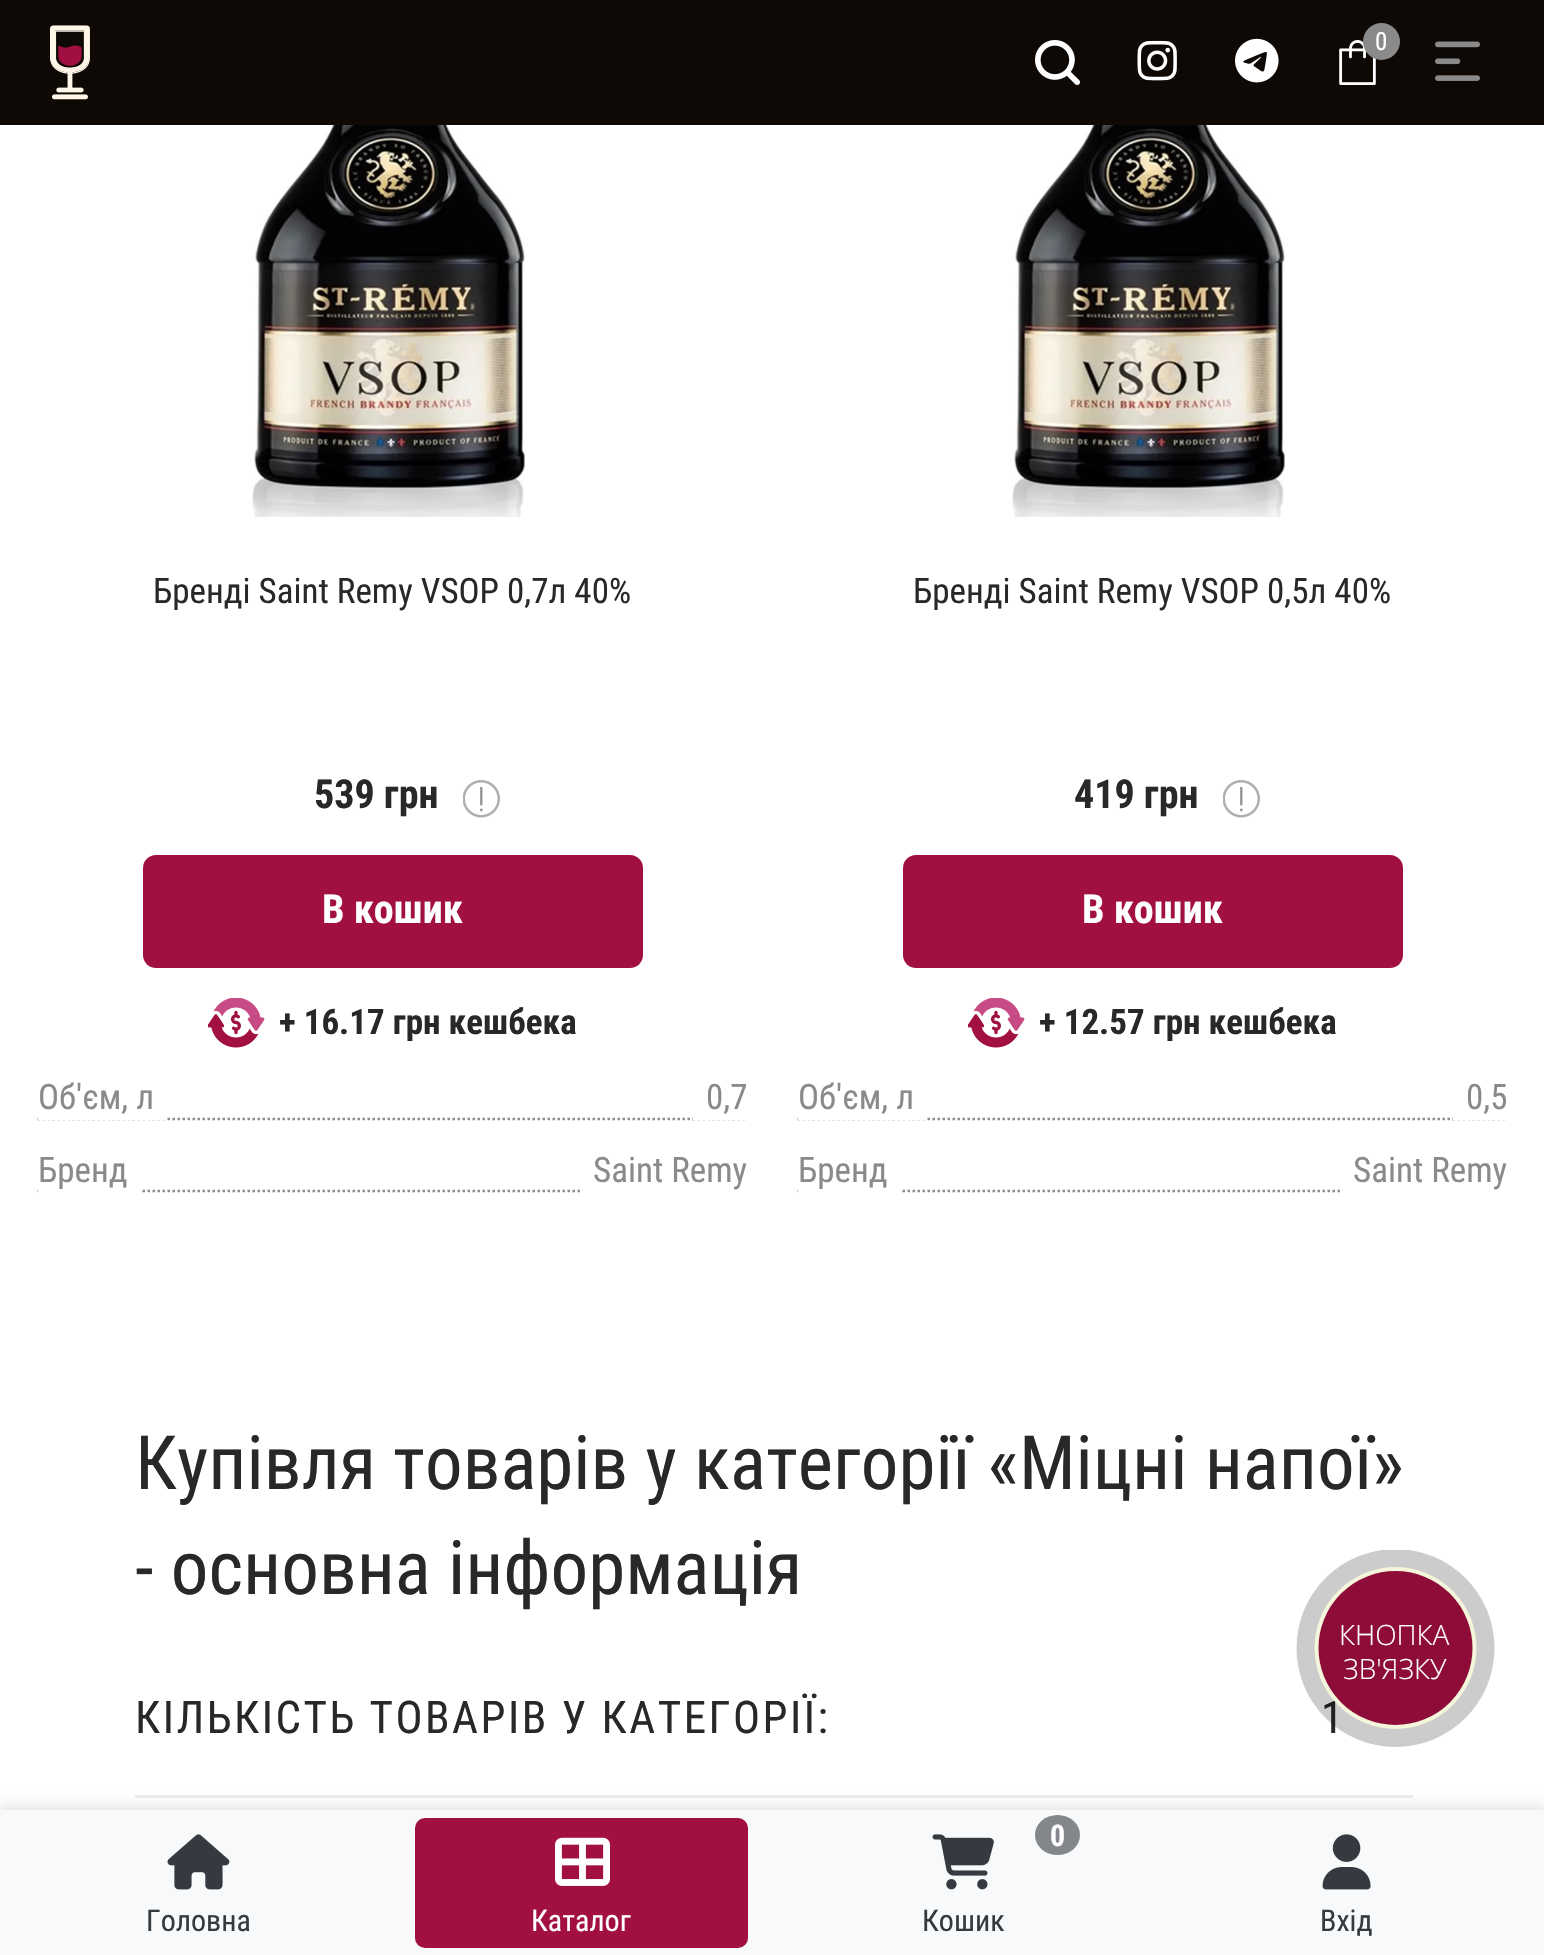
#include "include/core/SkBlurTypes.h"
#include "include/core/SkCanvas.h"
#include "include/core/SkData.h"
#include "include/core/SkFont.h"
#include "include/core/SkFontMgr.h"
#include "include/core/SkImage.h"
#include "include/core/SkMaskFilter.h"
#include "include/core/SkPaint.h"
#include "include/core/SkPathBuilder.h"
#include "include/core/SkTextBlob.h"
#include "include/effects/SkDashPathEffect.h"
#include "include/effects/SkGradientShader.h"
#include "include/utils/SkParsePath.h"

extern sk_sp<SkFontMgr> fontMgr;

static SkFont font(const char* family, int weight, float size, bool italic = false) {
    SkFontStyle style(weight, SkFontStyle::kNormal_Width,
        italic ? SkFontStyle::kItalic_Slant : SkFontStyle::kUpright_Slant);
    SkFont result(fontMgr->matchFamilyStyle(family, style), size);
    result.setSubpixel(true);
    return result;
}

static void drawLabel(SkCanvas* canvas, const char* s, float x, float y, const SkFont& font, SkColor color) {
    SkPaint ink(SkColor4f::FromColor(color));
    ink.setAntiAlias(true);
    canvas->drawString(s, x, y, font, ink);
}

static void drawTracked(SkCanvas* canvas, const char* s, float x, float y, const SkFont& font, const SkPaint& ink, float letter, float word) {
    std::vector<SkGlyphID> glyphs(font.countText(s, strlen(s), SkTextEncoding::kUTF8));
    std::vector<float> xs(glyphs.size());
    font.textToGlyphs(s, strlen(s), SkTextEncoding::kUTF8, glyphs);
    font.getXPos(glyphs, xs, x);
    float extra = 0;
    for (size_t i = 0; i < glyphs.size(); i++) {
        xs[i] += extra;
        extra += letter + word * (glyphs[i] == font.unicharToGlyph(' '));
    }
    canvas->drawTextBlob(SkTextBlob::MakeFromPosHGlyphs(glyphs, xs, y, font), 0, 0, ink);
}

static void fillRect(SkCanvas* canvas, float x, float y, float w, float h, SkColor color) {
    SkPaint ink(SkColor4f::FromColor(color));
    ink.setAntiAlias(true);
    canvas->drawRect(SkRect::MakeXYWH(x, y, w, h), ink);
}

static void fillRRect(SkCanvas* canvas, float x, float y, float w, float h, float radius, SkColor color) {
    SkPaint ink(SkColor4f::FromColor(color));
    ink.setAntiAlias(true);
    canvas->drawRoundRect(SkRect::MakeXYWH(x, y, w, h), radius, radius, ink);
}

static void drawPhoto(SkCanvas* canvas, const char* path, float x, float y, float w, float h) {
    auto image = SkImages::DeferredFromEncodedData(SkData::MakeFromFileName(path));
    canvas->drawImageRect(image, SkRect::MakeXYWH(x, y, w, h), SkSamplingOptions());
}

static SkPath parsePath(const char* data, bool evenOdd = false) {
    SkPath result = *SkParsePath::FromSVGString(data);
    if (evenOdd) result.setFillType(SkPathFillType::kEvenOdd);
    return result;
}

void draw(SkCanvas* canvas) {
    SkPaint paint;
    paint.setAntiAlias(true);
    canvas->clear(0xFFFFFFFF);
    fillRect(canvas, 0, 0, 1544, 125, 0xFF0E0905);
    drawPhoto(canvas, "assets/img1.png", 50, 25, 40, 75);
    drawPhoto(canvas, "assets/img2.png", 1035, 40, 45, 45);
    drawPhoto(canvas, "assets/img3.png", 1137, 40, 40, 41);
    drawPhoto(canvas, "assets/img4.png", 1235, 38, 44, 45);
    drawPhoto(canvas, "assets/img5.png", 1339, 40, 37, 45);
    paint.setColor(0xFF8A8A8A);
    canvas->drawCircle(1381.5f, 41.5f, 18.5f, paint);
    SkFont font1 = font("Roboto Condensed", 400, 25);
    drawLabel(canvas, "0", 1375, 50, font1, 0xFFFFFFFF);
    drawPhoto(canvas, "assets/img6.png", 1435, 41, 45, 40);
    drawPhoto(canvas, "assets/img7.png", 252, 125, 273, 392);
    SkFont font2 = font("Roboto Condensed", 400, 35);
    drawLabel(canvas, "Бренді Saint Remy VSOP 0,7л 40%", 153, 603, font2, 0xFF282828);
    SkFont font3 = font("Roboto Condensed", 700, 40);
    drawLabel(canvas, "539 грн", 314, 808, font3, 0xFF282828);
    drawPhoto(canvas, "assets/img8.png", 463, 780, 37, 38);
    fillRRect(canvas, 143, 855, 500, 113, 13, 0xFFA21041);
    drawLabel(canvas, "В кошик", 322, 923, font3, 0xFFFFFFFF);
    drawPhoto(canvas, "assets/img9.png", 208, 998, 57, 50);
    SkFont font4 = font("Roboto Condensed", 700, 35);
    drawLabel(canvas, "+ 16.17 грн кешбека", 279, 1034, font4, 0xFF282828);
    paint.setStroke(true);
    paint.setStrokeWidth(2.5f);
    paint.setColor(0xFF8F8C8A);
    paint.setPathEffect(SkDashPathEffect::Make({{2.5f, 2.5f}}, 0));
    canvas->drawPath(parsePath("M37.5 1119H747.5"), paint);
    paint.setPathEffect(nullptr);
    fillRect(canvas, 38, 1117, 127, 3, 0xFFFFFFFF);
    drawLabel(canvas, "Об'єм, л", 38, 1109, font2, 0xFF8A8A8A);
    fillRect(canvas, 693, 1117, 52, 3, 0xFFFFFFFF);
    drawLabel(canvas, "0,7", 706, 1109, font2, 0xFF8A8A8A);
    paint.setPathEffect(SkDashPathEffect::Make({{2.5f, 2.5f}}, 0));
    canvas->drawPath(parsePath("M37.5 1191H747.5"), paint);
    paint.setPathEffect(nullptr);
    fillRect(canvas, 38, 1189, 102, 4, 0xFFFFFFFF);
    drawLabel(canvas, "Бренд", 38, 1182, font2, 0xFF8A8A8A);
    fillRect(canvas, 582, 1189, 163, 4, 0xFFFFFFFF);
    drawLabel(canvas, "Saint Remy", 593, 1182, font2, 0xFF8A8A8A);
    drawPhoto(canvas, "assets/img10.png", 1012, 125, 273, 392);
    drawLabel(canvas, "Бренді Saint Remy VSOP 0,5л 40%", 913, 603, font2, 0xFF282828);
    drawLabel(canvas, "419 грн", 1074, 808, font3, 0xFF282828);
    drawPhoto(canvas, "assets/img8.png", 1223, 780, 37, 38);
    fillRRect(canvas, 903, 855, 500, 113, 13, 0xFFA21041);
    drawLabel(canvas, "В кошик", 1082, 923, font3, 0xFFFFFFFF);
    drawPhoto(canvas, "assets/img9.png", 968, 998, 57, 50);
    drawLabel(canvas, "+ 12.57 грн кешбека", 1039, 1034, font4, 0xFF282828);
    paint.setPathEffect(SkDashPathEffect::Make({{2.5f, 2.5f}}, 0));
    canvas->drawPath(parsePath("M797.5 1119H1507.5"), paint);
    paint.setPathEffect(nullptr);
    fillRect(canvas, 798, 1117, 127, 3, 0xFFFFFFFF);
    drawLabel(canvas, "Об'єм, л", 798, 1109, font2, 0xFF8A8A8A);
    fillRect(canvas, 1453, 1117, 52, 3, 0xFFFFFFFF);
    drawLabel(canvas, "0,5", 1466, 1109, font2, 0xFF8A8A8A);
    paint.setPathEffect(SkDashPathEffect::Make({{2.5f, 2.5f}}, 0));
    canvas->drawPath(parsePath("M797.5 1191H1507.5"), paint);
    paint.setPathEffect(nullptr);
    fillRect(canvas, 798, 1189, 102, 4, 0xFFFFFFFF);
    drawLabel(canvas, "Бренд", 798, 1182, font2, 0xFF8A8A8A);
    fillRect(canvas, 1342, 1189, 163, 4, 0xFFFFFFFF);
    drawLabel(canvas, "Saint Remy", 1353, 1182, font2, 0xFF8A8A8A);
    SkFont font5 = font("Roboto Condensed", 400, 75);
    drawLabel(canvas, "Купівля товарів у категорії «Міцні напої»", 135, 1489, font5, 0xFF282828);
    drawLabel(canvas, "- основна інформація", 135, 1594, font5, 0xFF282828);
    fillRect(canvas, 135, 1795, 1278, 3, 0xFFEEEEEE);
    SkFont font6 = font("Roboto Condensed", 400, 45);
    paint.setStroke(false);
    paint.setColor(0xFF282828);
    drawTracked(canvas, "КІЛЬКІСТЬ ТОВАРІВ У КАТЕГОРІЇ:", 135, 1733, font6, paint, 2.5f, 0);
    drawLabel(canvas, "1", 1321, 1733, font6, 0xFF282828);
    canvas->save();
    canvas->clipRect(SkRect::MakeXYWH(1295, 1550, 200, 198));
    paint.setColor(0x33000000);
    canvas->drawCircle(1395.5f, 1648, 99, paint);
    canvas->restore();
    paint.setColor(0xFF8E0D38);
    canvas->drawCircle(1395.5f, 1648, 79, paint);
    paint.setStroke(true);
    paint.setStrokeWidth(4);
    paint.setColor(0xFFF5F5DC);
    canvas->drawCircle(1395.5f, 1648, 79, paint);
    SkFont font7 = font("Open Sans", 300, 28);
    drawLabel(canvas, "КНОПКА", 1339, 1645, font7, 0xFFFFFFFF);
    drawLabel(canvas, "ЗВ'ЯЗКУ", 1343, 1679, font7, 0xFFFFFFFF);
    paint.setStroke(false);
    paint.setColor(0x1A000000);
    paint.setMaskFilter(SkMaskFilter::MakeBlur(kNormal_SkBlurStyle, 6));
    canvas->drawRect(SkRect::MakeXYWH(0, 1805, 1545, 145), paint);
    paint.setMaskFilter(nullptr);
    fillRect(canvas, 0, 1810, 1544, 145, 0xFFF8F9FA);
    drawPhoto(canvas, "assets/img11.png", 167, 1834, 63, 56);
    SkFont font8 = font("Roboto Condensed", 400, 30);
    drawLabel(canvas, "Головна", 146, 1931, font8, 0xFF343A40);
    fillRRect(canvas, 415, 1818, 333, 130, 10, 0xFFA21041);
    drawPhoto(canvas, "assets/img12.png", 555, 1837, 55, 49);
    drawLabel(canvas, "Каталог", 531, 1931, font8, 0xFFFFFFFF);
    drawPhoto(canvas, "assets/img13.png", 932, 1834, 62, 56);
    paint.setColor(0xFF83868A);
    canvas->drawOval(SkRect::MakeXYWH(1035, 1815, 45, 40), paint);
    SkFont font9 = font("Roboto Condensed", 700, 30);
    drawLabel(canvas, "0", 1050, 1846, font9, 0xFFFFFFFF);
    drawLabel(canvas, "Кошик", 922, 1931, font8, 0xFF343A40);
    drawPhoto(canvas, "assets/img14.png", 1322, 1834, 49, 56);
    drawLabel(canvas, "Вхід", 1320, 1931, font8, 0xFF343A40);
}
